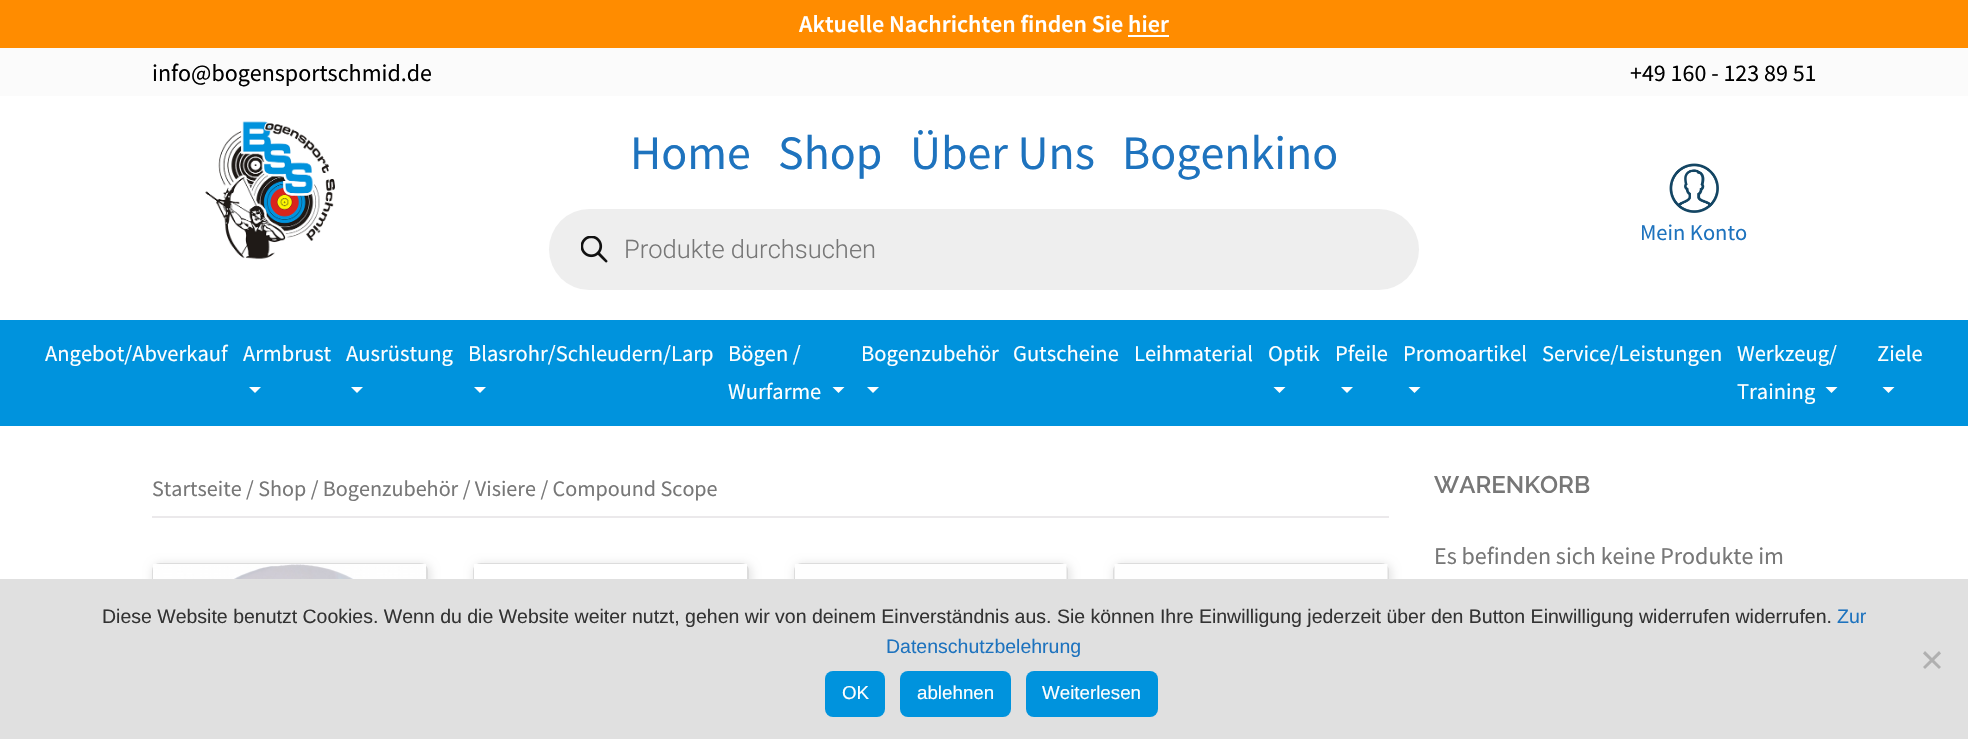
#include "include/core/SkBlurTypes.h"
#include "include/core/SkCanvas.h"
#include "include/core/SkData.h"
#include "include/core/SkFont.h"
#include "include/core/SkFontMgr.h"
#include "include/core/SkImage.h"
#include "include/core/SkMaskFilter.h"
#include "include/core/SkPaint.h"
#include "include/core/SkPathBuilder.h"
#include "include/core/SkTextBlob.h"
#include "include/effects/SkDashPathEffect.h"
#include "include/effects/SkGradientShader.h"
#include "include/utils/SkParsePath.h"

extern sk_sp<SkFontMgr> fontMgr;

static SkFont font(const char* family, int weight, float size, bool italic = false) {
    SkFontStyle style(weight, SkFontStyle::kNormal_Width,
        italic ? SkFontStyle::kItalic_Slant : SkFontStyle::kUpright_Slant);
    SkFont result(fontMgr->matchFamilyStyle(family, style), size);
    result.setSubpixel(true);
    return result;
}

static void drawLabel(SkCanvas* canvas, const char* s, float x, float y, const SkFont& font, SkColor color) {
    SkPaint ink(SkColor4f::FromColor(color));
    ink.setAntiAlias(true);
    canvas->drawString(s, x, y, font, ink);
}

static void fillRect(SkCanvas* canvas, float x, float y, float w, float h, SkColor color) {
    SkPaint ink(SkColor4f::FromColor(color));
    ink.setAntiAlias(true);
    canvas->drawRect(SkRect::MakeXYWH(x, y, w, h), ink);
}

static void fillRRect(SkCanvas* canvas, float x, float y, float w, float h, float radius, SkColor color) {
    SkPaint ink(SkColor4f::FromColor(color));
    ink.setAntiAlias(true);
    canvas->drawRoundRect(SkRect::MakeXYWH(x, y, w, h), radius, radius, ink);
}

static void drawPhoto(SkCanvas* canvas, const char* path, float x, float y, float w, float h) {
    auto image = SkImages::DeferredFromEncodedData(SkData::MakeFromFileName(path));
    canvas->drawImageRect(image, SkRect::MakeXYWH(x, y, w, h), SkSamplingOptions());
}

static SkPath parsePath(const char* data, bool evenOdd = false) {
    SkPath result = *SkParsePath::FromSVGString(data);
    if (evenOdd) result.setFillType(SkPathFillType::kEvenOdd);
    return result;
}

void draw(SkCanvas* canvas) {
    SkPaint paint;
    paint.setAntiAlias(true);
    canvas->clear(0xFFFFFFFF);
    fillRect(canvas, 0, 0, 1968, 48, 0xFFFF8C00);
    SkFont font1 = font("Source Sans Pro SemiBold", 600, 24);
    drawLabel(canvas, "Aktuelle Nachrichten finden Sie hier", 799, 32, font1, 0xFFFFFFFF);
    fillRect(canvas, 1128, 35, 41, 2, 0xFFFFFFFF);
    fillRect(canvas, 0, 48, 1968, 48, 0xFFFBFBFB);
    SkFont font2 = font("Source Sans Pro", 400, 24);
    drawLabel(canvas, "info@bogensportschmid.de", 152, 81, font2, 0xFF000000);
    drawLabel(canvas, "+49 160 - 123 89 51", 1630, 81, font2, 0xFF000000);
    drawPhoto(canvas, "assets/img1.png", 205, 121, 130, 138);
    SkFont font3 = font("Source Sans Pro", 400, 48);
    drawLabel(canvas, "Home", 630, 169, font3, 0xFF1E73BE);
    drawLabel(canvas, "Shop", 778, 169, font3, 0xFF1E73BE);
    drawLabel(canvas, "Über Uns", 910, 169, font3, 0xFF1E73BE);
    drawLabel(canvas, "Bogenkino", 1122, 169, font3, 0xFF1E73BE);
    fillRRect(canvas, 549, 209, 870, 81, 40.5f, 0xFFEEEEEE);
    drawPhoto(canvas, "assets/img2.png", 581, 236, 27, 27);
    SkFont font4 = font("Roboto", 300, 25.5f);
    drawLabel(canvas, "Produkte durchsuchen", 624, 258, font4, 0xFF777777);
    drawPhoto(canvas, "assets/img3.png", 1669, 163, 50, 50);
    SkFont font5 = font("Source Sans Pro", 400, 22.5f);
    drawLabel(canvas, "Mein Konto", 1640, 240, font5, 0xFF1E73BE);
    fillRect(canvas, 0, 320, 1968, 106, 0xFF0093DD);
    drawLabel(canvas, "Angebot/Abverkauf", 45, 361, font5, 0xFFFFFFFF);
    drawLabel(canvas, "Armbrust", 243, 361, font5, 0xFFFFFFFF);
    paint.setColor(0xFFFFFFFF);
    canvas->drawPath(parsePath("M249 387H261L255 393Z"), paint);
    drawLabel(canvas, "Ausrüstung", 346, 361, font5, 0xFFFFFFFF);
    canvas->drawPath(parsePath("M351 387H363L357 393Z"), paint);
    drawLabel(canvas, "Blasrohr/Schleudern/Larp", 468, 361, font5, 0xFFFFFFFF);
    canvas->drawPath(parsePath("M474 387H486L480 393Z"), paint);
    drawLabel(canvas, "Bögen /", 728, 361, font5, 0xFFFFFFFF);
    drawLabel(canvas, "Wurfarme", 728, 399, font5, 0xFFFFFFFF);
    canvas->drawPath(parsePath("M832.5 387H844.5L838.5 393Z"), paint);
    drawLabel(canvas, "Bogenzubehör", 861, 361, font5, 0xFFFFFFFF);
    canvas->drawPath(parsePath("M867 387H879L873 393Z"), paint);
    drawLabel(canvas, "Gutscheine", 1013, 361, font5, 0xFFFFFFFF);
    drawLabel(canvas, "Leihmaterial", 1134, 361, font5, 0xFFFFFFFF);
    drawLabel(canvas, "Optik", 1268, 361, font5, 0xFFFFFFFF);
    canvas->drawPath(parsePath("M1273.5 387H1285.5L1279.5 393Z"), paint);
    drawLabel(canvas, "Pfeile", 1335, 361, font5, 0xFFFFFFFF);
    canvas->drawPath(parsePath("M1341 387H1353L1347 393Z"), paint);
    drawLabel(canvas, "Promoartikel", 1403, 361, font5, 0xFFFFFFFF);
    canvas->drawPath(parsePath("M1408.5 387H1420.5L1414.5 393Z"), paint);
    drawLabel(canvas, "Service/Leistungen", 1542, 361, font5, 0xFFFFFFFF);
    drawLabel(canvas, "Werkzeug/", 1737, 361, font5, 0xFFFFFFFF);
    drawLabel(canvas, "Training", 1737, 399, font5, 0xFFFFFFFF);
    canvas->drawPath(parsePath("M1825.5 387H1837.5L1831.5 393Z"), paint);
    drawLabel(canvas, "Ziele", 1877, 361, font5, 0xFFFFFFFF);
    canvas->drawPath(parsePath("M1882.5 387H1894.5L1888.5 393Z"), paint);
    fillRect(canvas, 152, 516, 1237, 2, 0xFFEBE9EB);
    SkFont font6 = font("Source Sans Pro", 400, 22.1f);
    drawLabel(canvas, "Startseite / Shop / Bogenzubehör / Visiere / Compound Scope", 152, 496, font6, 0xFF777777);
    paint.setColor(0x1A000000);
    paint.setMaskFilter(SkMaskFilter::MakeBlur(kNormal_SkBlurStyle, 4));
    canvas->drawRoundRect(SkRect::MakeXYWH(152, 563, 279, 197), 9, 9, paint);
    paint.setMaskFilter(nullptr);
    fillRRect(canvas, 152, 563, 276, 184, 8, 0xFFFBFBFB);
    paint.setStroke(true);
    paint.setStrokeWidth(2);
    paint.setColor(0x1F000000);
    canvas->drawRoundRect(SkRect::MakeXYWH(153, 564, 274, 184), 7, 7, paint);
    drawPhoto(canvas, "assets/img4.png", 153, 564, 273, 15);
    paint.setStroke(false);
    paint.setColor(0x1A000000);
    paint.setMaskFilter(SkMaskFilter::MakeBlur(kNormal_SkBlurStyle, 4));
    canvas->drawRoundRect(SkRect::MakeXYWH(473, 563, 279, 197), 9, 9, paint);
    paint.setMaskFilter(nullptr);
    fillRRect(canvas, 473, 563, 276, 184, 8, 0xFFFBFBFB);
    paint.setStroke(true);
    paint.setColor(0x1F000000);
    canvas->drawRoundRect(SkRect::MakeXYWH(474, 564, 274, 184), 7, 7, paint);
    drawPhoto(canvas, "assets/img5.png", 474, 564, 273, 15);
    paint.setStroke(false);
    paint.setColor(0x1A000000);
    paint.setMaskFilter(SkMaskFilter::MakeBlur(kNormal_SkBlurStyle, 4));
    canvas->drawRoundRect(SkRect::MakeXYWH(794, 563, 277, 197), 9, 9, paint);
    paint.setMaskFilter(nullptr);
    paint.setStroke(true);
    paint.setColor(0xFFDCDCDC);
    canvas->drawRoundRect(SkRect::MakeXYWH(795, 564, 272, 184), 7, 7, paint);
    drawPhoto(canvas, "assets/img6.png", 795, 564, 272, 15);
    paint.setStroke(false);
    paint.setColor(0x1A000000);
    paint.setMaskFilter(SkMaskFilter::MakeBlur(kNormal_SkBlurStyle, 4));
    canvas->drawRoundRect(SkRect::MakeXYWH(1113, 563, 279, 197), 9, 9, paint);
    paint.setMaskFilter(nullptr);
    paint.setStroke(true);
    paint.setColor(0xFFDCDCDC);
    canvas->drawRoundRect(SkRect::MakeXYWH(1114, 564, 274, 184), 7, 7, paint);
    drawPhoto(canvas, "assets/img7.png", 1114, 564, 274, 15);
    SkFont font7 = font("Raleway", 600, 24);
    drawLabel(canvas, "WARENKORB", 1434, 493, font7, 0xFF777777);
    drawLabel(canvas, "Es befinden sich keine Produkte im", 1434, 564, font2, 0xFF777777);
    fillRect(canvas, 0, 579, 1968, 160, 0xFFE0E0E0);
    SkFont font8 = font("Liberation Sans", 400, 19.5f);
    drawLabel(canvas, "Diese Website benutzt Cookies. Wenn du die Website weiter nutzt, gehen wir von deinem Einverständnis aus. Sie können Ihre Einwilligung jederzeit über den Button Einwilligung widerrufen widerrufen.", 102, 623, font8, 0xFF333333);
    drawLabel(canvas, "Zur", 1837, 623, font8, 0xFF1E73BE);
    drawLabel(canvas, "Datenschutzbelehrung", 886, 653, font8, 0xFF1E73BE);
    paint.setStroke(false);
    paint.setColor(0xFFB0B0B0);
    canvas->drawPath(parsePath("M1939 651L1941 653.5L1925 669L1923 667Z"), paint);
    canvas->drawPath(parsePath("M1923 653.5L1925 651L1941 667L1939 669Z"), paint);
    fillRRect(canvas, 825, 671, 60, 46, 8, 0xFF0093DD);
    SkFont font9 = font("Liberation Sans", 400, 18.75f);
    drawLabel(canvas, "OK", 842, 699, font9, 0xFFFFFFFF);
    fillRRect(canvas, 900, 671, 111, 46, 8, 0xFF0093DD);
    drawLabel(canvas, "ablehnen", 917, 699, font9, 0xFFFFFFFF);
    fillRRect(canvas, 1026, 671, 132, 46, 8, 0xFF0093DD);
    drawLabel(canvas, "Weiterlesen", 1042, 699, font9, 0xFFFFFFFF);
}
